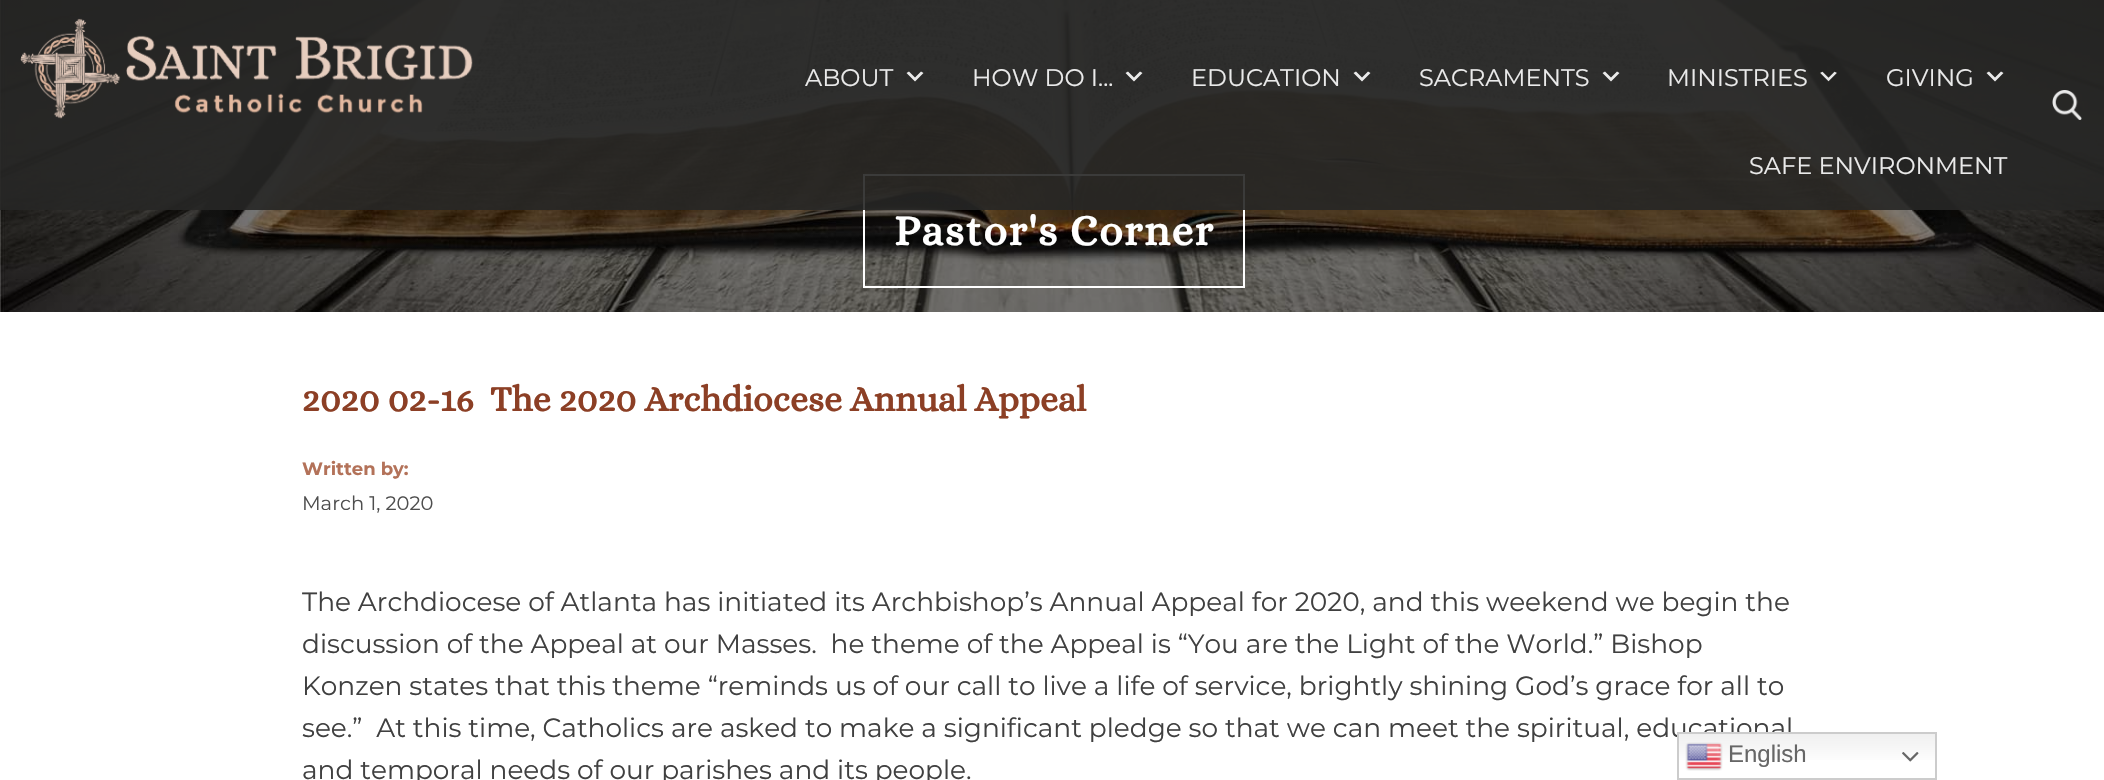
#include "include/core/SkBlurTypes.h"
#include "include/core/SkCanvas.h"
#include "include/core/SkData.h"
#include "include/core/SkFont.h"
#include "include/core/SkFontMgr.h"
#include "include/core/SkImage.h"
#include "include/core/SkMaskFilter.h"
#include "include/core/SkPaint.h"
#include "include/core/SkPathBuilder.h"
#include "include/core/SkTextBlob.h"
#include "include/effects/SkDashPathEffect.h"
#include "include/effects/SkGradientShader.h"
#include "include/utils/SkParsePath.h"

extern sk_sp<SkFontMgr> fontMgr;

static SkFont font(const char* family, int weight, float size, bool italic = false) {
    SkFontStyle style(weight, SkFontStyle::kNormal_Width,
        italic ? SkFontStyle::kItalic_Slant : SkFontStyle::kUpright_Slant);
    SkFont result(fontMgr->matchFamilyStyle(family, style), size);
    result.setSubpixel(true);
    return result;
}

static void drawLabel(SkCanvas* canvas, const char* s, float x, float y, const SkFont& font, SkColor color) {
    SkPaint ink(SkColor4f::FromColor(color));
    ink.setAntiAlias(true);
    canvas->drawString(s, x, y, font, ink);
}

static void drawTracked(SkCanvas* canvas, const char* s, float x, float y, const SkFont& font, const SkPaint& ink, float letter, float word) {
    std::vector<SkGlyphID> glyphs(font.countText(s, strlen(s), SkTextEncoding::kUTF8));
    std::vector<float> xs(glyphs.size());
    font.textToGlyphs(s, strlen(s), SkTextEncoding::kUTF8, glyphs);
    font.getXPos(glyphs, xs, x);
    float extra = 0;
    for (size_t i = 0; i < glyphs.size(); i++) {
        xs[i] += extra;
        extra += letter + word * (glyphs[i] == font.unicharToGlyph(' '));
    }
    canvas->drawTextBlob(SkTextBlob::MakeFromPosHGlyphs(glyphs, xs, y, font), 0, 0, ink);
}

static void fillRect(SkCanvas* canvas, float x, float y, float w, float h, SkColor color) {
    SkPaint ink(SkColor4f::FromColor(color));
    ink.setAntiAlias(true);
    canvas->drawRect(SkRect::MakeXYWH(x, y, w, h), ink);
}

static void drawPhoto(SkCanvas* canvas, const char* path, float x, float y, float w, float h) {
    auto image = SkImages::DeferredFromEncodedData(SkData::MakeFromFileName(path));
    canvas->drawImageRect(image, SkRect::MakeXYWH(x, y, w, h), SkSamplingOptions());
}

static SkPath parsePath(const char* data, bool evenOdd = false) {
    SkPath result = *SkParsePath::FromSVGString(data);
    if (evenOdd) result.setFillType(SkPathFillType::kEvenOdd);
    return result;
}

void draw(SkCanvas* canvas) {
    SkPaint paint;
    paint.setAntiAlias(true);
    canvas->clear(0xFFFFFFFF);
    drawPhoto(canvas, "assets/img4.png", 0, 0, 2104, 312);
    paint.setStroke(true);
    paint.setStrokeWidth(2);
    paint.setColor(0xFFFFFFFF);
    canvas->drawRect(SkRect::MakeXYWH(864, 175, 380, 112), paint);
    fillRect(canvas, 0, 0, 2104, 210, 0xE6262625);
    drawPhoto(canvas, "assets/img1.png", 20, 18, 453, 101);
    SkFont font1 = font("Montserrat", 400, 24);
    drawLabel(canvas, "ABOUT", 805, 86, font1, 0xFFEAEAEA);
    paint.setStroke(false);
    paint.setColor(0xE6FFFFFF);
    canvas->drawPath(parsePath("M909 71.5L915 77.5L921 71.5L923.5 73L915 81.5L906.5 73Z"), paint);
    drawLabel(canvas, "HOW DO I...", 972, 86, font1, 0xFFEAEAEA);
    canvas->drawPath(parsePath("M1128 71.5L1134 77.5L1140 71.5L1142.5 73L1134 81.5L1125.5 73Z"), paint);
    drawLabel(canvas, "EDUCATION", 1191, 86, font1, 0xFFEAEAEA);
    canvas->drawPath(parsePath("M1356 71.5L1362 77.5L1368 71.5L1370.5 73L1362 81.5L1353.5 73Z"), paint);
    drawLabel(canvas, "SACRAMENTS", 1419, 86, font1, 0xFFEAEAEA);
    canvas->drawPath(parsePath("M1605 71.5L1611 77.5L1617 71.5L1619.5 73L1611 81.5L1602.5 73Z"), paint);
    drawLabel(canvas, "MINISTRIES", 1667, 86, font1, 0xFFEAEAEA);
    drawPhoto(canvas, "assets/img2.png", 1820, 71, 17, 11);
    drawLabel(canvas, "GIVING", 1886, 86, font1, 0xFFEAEAEA);
    paint.setColor(0xFFE9E9E9);
    canvas->drawPath(parsePath("M1989 71.5L1995 77.5L2001 71.5L2003.5 73L1995 81.5L1986.5 73Z"), paint);
    drawLabel(canvas, "SAFE ENVIRONMENT", 1749, 174, font1, 0xFFEAEAEA);
    drawPhoto(canvas, "assets/img3.png", 2052, 90, 30, 30);
    SkFont font2 = font("Alice", 700, 43.25f);
    paint.setColor(0xFFFFFFFF);
    drawTracked(canvas, "Pastor's Corner", 894, 245, font2, paint, 1.5f, 0);
    SkFont font3 = font("Alice", 700, 36);
    drawLabel(canvas, "2020 02-16", 302, 411, font3, 0xFF8C3F25);
    drawLabel(canvas, "The 2020 Archdiocese Annual Appeal", 490, 411, font3, 0xFF8C3F25);
    SkFont font4 = font("Montserrat", 700, 18);
    drawLabel(canvas, "Written by:", 302, 475, font4, 0xFFB37259);
    SkFont font5 = font("Montserrat", 400, 19.5f);
    drawLabel(canvas, "March 1, 2020", 302, 510, font5, 0xFF4E4E4E);
    SkFont font6 = font("Montserrat", 400, 26.4f);
    drawLabel(canvas, "The Archdiocese of Atlanta has initiated its Archbishop’s Annual Appeal for 2020, and this weekend we begin the", 302, 611, font6, 0xFF404040);
    drawLabel(canvas, "discussion of the Appeal at our Masses.  he theme of the Appeal is “You are the Light of the World.” Bishop", 302, 653, font6, 0xFF404040);
    drawLabel(canvas, "Konzen states that this theme “reminds us of our call to live a life of service, brightly shining God’s grace for all to", 302, 695, font6, 0xFF404040);
    drawLabel(canvas, "see.”  At this time, Catholics are asked to make a significant pledge so that we can meet the spiritual, educational", 302, 737, font6, 0xFF404040);
    drawLabel(canvas, "and temporal needs of our parishes and its people.", 302, 779, font6, 0xFF404040);
    {
        const SkColor colors[] = {0xFFEFEFEF, 0xFFFFFFFF};
        const float stops[] = {0, 0.7f};
        const SkPoint ends[] = {{1807, 732}, {1807, 780}};
        paint.setShader(SkGradientShader::MakeLinear(ends, colors, stops, 2, SkTileMode::kClamp));
        paint.setAlpha(255);
    }
    canvas->drawRect(SkRect::MakeXYWH(1679, 734, 256, 26), paint);
    paint.setStroke(true);
    paint.setShader(nullptr);
    paint.setColor(0xFFCCCCCC);
    canvas->drawRect(SkRect::MakeXYWH(1678, 733, 258, 46), paint);
    drawPhoto(canvas, "assets/img5.png", 1685, 742, 38, 29);
    SkFont font7 = font("Liberation Sans", 400, 24);
    drawLabel(canvas, "English", 1728, 762, font7, 0xFF666666);
    drawPhoto(canvas, "assets/img6.png", 1902, 752, 17, 10);
}
